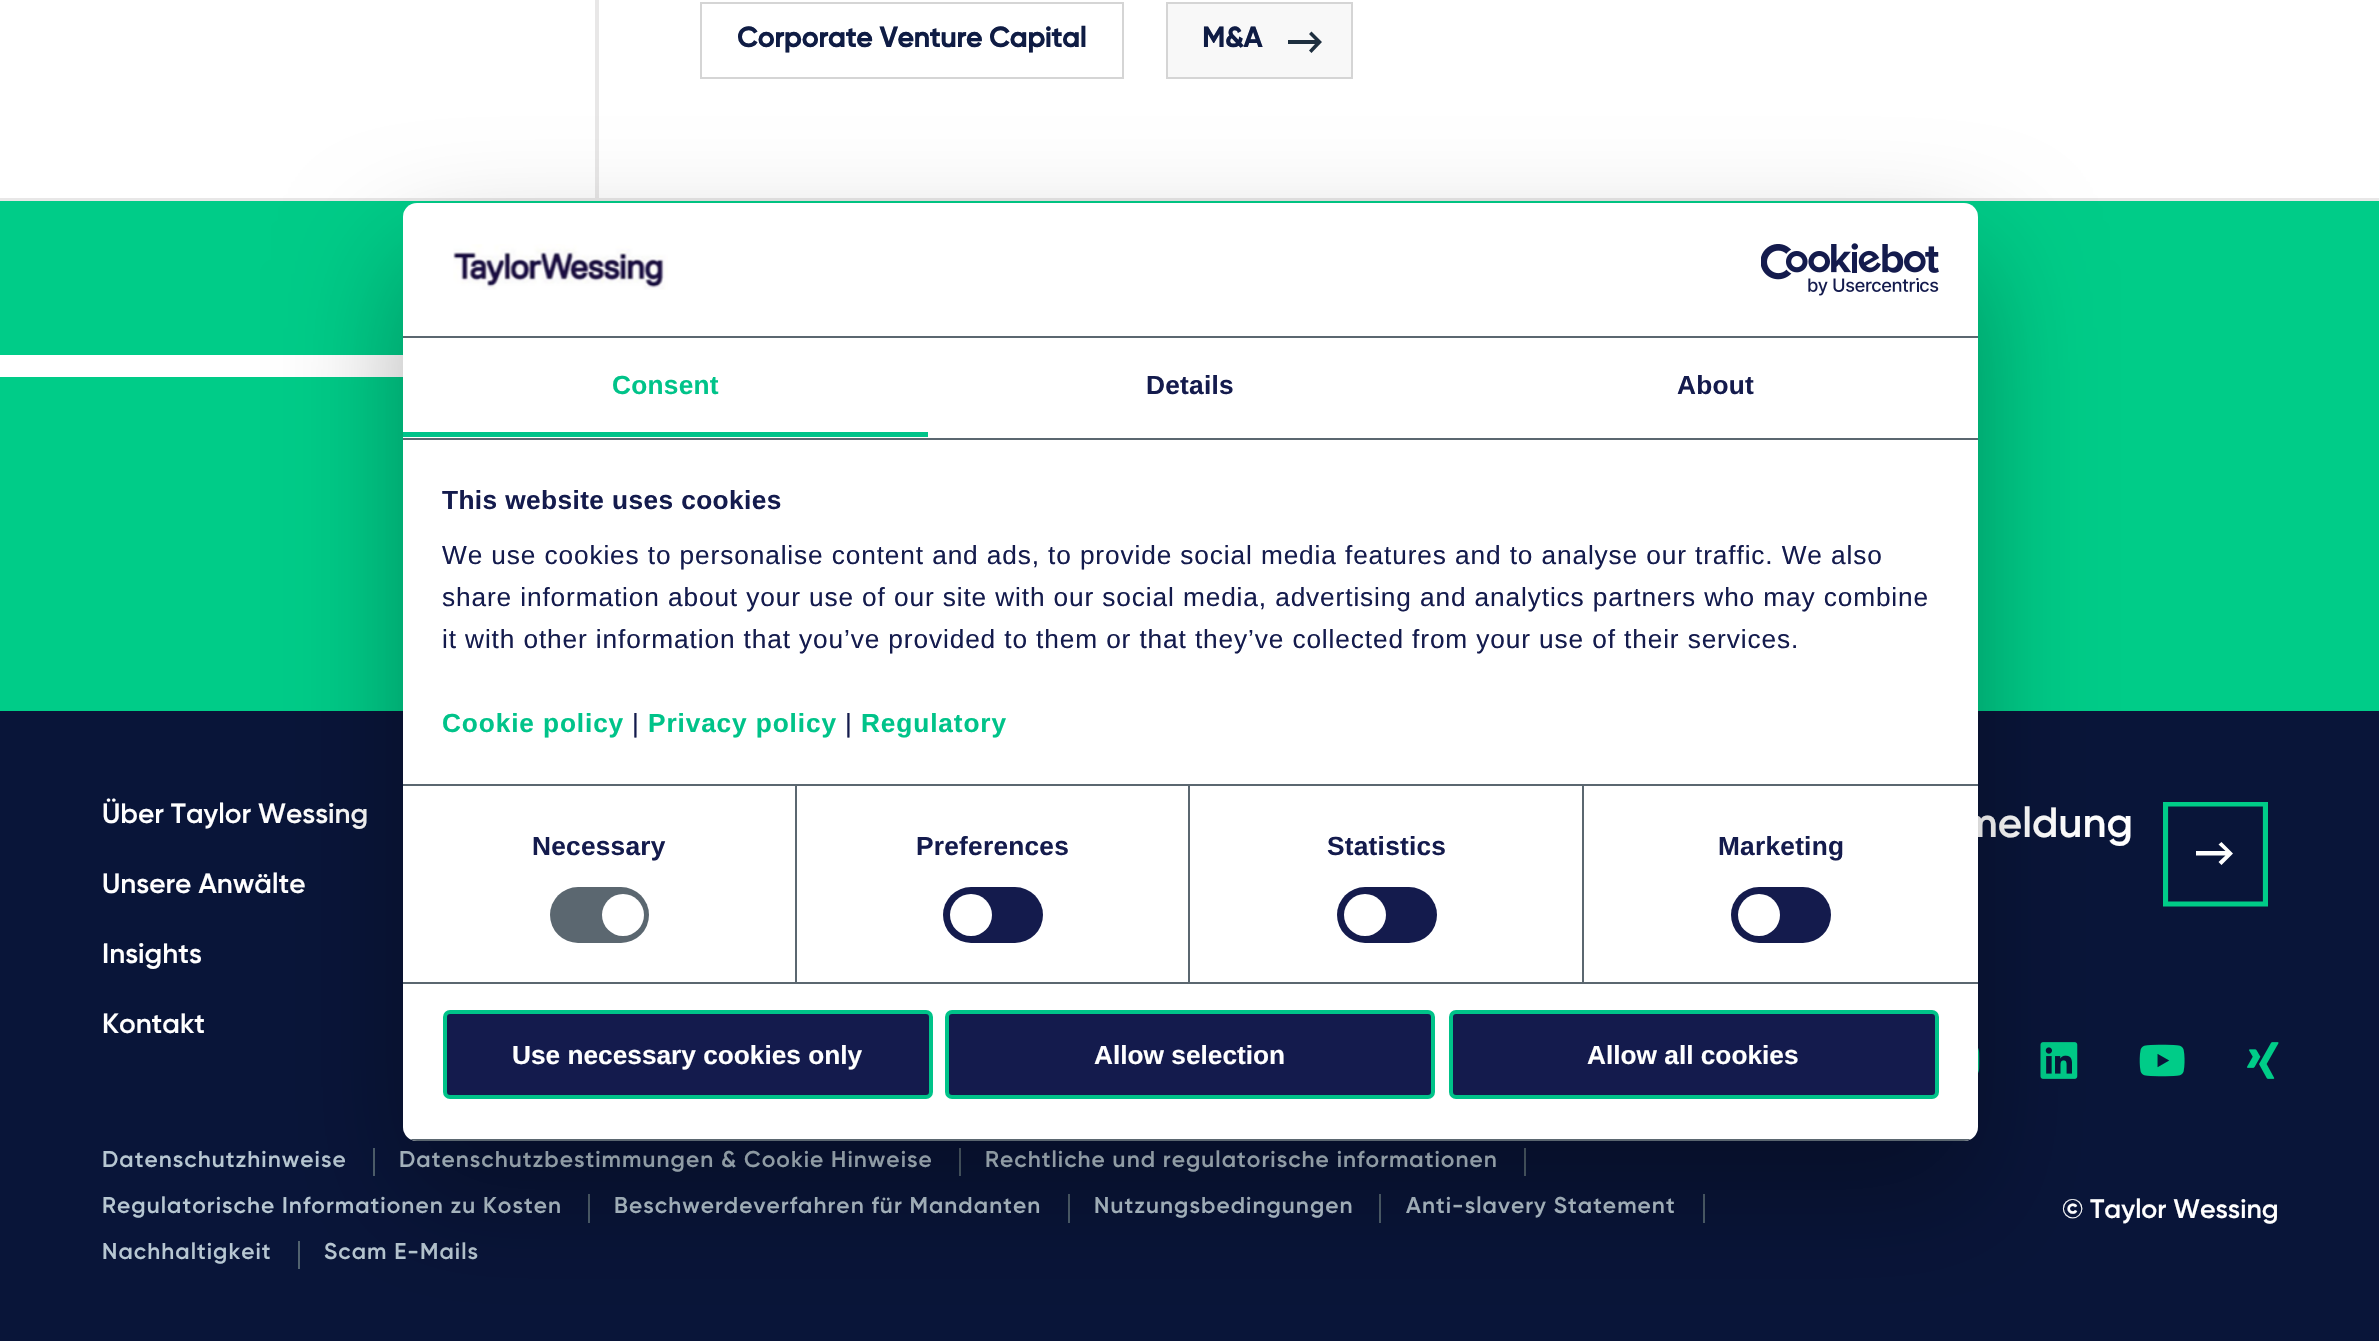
#include "include/core/SkBlurTypes.h"
#include "include/core/SkCanvas.h"
#include "include/core/SkData.h"
#include "include/core/SkFont.h"
#include "include/core/SkFontMgr.h"
#include "include/core/SkImage.h"
#include "include/core/SkMaskFilter.h"
#include "include/core/SkPaint.h"
#include "include/core/SkPathBuilder.h"
#include "include/core/SkTextBlob.h"
#include "include/effects/SkDashPathEffect.h"
#include "include/effects/SkGradientShader.h"
#include "include/utils/SkParsePath.h"

extern sk_sp<SkFontMgr> fontMgr;

static SkFont font(const char* family, int weight, float size, bool italic = false) {
    SkFontStyle style(weight, SkFontStyle::kNormal_Width,
        italic ? SkFontStyle::kItalic_Slant : SkFontStyle::kUpright_Slant);
    SkFont result(fontMgr->matchFamilyStyle(family, style), size);
    result.setSubpixel(true);
    return result;
}

static void drawLabel(SkCanvas* canvas, const char* s, float x, float y, const SkFont& font, SkColor color) {
    SkPaint ink(SkColor4f::FromColor(color));
    ink.setAntiAlias(true);
    canvas->drawString(s, x, y, font, ink);
}

static void drawTracked(SkCanvas* canvas, const char* s, float x, float y, const SkFont& font, const SkPaint& ink, float letter, float word) {
    std::vector<SkGlyphID> glyphs(font.countText(s, strlen(s), SkTextEncoding::kUTF8));
    std::vector<float> xs(glyphs.size());
    font.textToGlyphs(s, strlen(s), SkTextEncoding::kUTF8, glyphs);
    font.getXPos(glyphs, xs, x);
    float extra = 0;
    for (size_t i = 0; i < glyphs.size(); i++) {
        xs[i] += extra;
        extra += letter + word * (glyphs[i] == font.unicharToGlyph(' '));
    }
    canvas->drawTextBlob(SkTextBlob::MakeFromPosHGlyphs(glyphs, xs, y, font), 0, 0, ink);
}

static void fillRect(SkCanvas* canvas, float x, float y, float w, float h, SkColor color) {
    SkPaint ink(SkColor4f::FromColor(color));
    ink.setAntiAlias(true);
    canvas->drawRect(SkRect::MakeXYWH(x, y, w, h), ink);
}

static void fillRRect(SkCanvas* canvas, float x, float y, float w, float h, float radius, SkColor color) {
    SkPaint ink(SkColor4f::FromColor(color));
    ink.setAntiAlias(true);
    canvas->drawRoundRect(SkRect::MakeXYWH(x, y, w, h), radius, radius, ink);
}

static void drawPhoto(SkCanvas* canvas, const char* path, float x, float y, float w, float h) {
    auto image = SkImages::DeferredFromEncodedData(SkData::MakeFromFileName(path));
    canvas->drawImageRect(image, SkRect::MakeXYWH(x, y, w, h), SkSamplingOptions());
}

static SkPath parsePath(const char* data, bool evenOdd = false) {
    SkPath result = *SkParsePath::FromSVGString(data);
    if (evenOdd) result.setFillType(SkPathFillType::kEvenOdd);
    return result;
}

void draw(SkCanvas* canvas) {
    SkPaint paint;
    paint.setAntiAlias(true);
    canvas->clear(0xFFFFFFFF);
    fillRect(canvas, 0, 198, 2379, 3, 0xFFE8E7E7);
    fillRect(canvas, 595, 0, 4, 198, 0xFFE8E7E7);
    paint.setStroke(true);
    paint.setStrokeWidth(2);
    paint.setColor(0xFFD5D5D5);
    canvas->drawRect(SkRect::MakeXYWH(701, 3, 422, 75), paint);
    SkFont font1 = font("Gilroy", 700, 28);
    drawLabel(canvas, "Corporate Venture Capital", 737, 47, font1, 0xFF0F1C44);
    paint.setStroke(false);
    paint.setColor(0xFFF8F8F8);
    canvas->drawRect(SkRect::MakeXYWH(1167, 3, 185, 75), paint);
    paint.setStroke(true);
    paint.setColor(0xFFD5D5D5);
    canvas->drawRect(SkRect::MakeXYWH(1167, 3, 185, 75), paint);
    drawLabel(canvas, "M&A", 1202, 47, font1, 0xFF0F1C44);
    paint.setStroke(false);
    paint.setColor(0xFF1E2F3F);
    canvas->drawPath(parsePath("M1311.5 31.5L1309 34L1315 40H1288V44H1315L1309 50.5L1311.5 53L1322 42Z"), paint);
    fillRect(canvas, 0, 201, 2379, 510, 0xFF00CC88);
    paint.setColor(0xFFFFFFFF);
    canvas->drawPath(parsePath("M698 355H754L718 320L732 306L793 366L732 425L718 412L754 377H-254V355Z", true), paint);
    fillRect(canvas, 0, 711, 2379, 630, 0xFF091539);
    SkFont font2 = font("Gilroy", 400, 28);
    drawLabel(canvas, "Über Taylor Wessing", 102, 823, font2, 0xFFFFFFFF);
    drawLabel(canvas, "Unsere Anwälte", 102, 893, font2, 0xFFFFFFFF);
    drawLabel(canvas, "Insights", 102, 963, font2, 0xFFFFFFFF);
    drawLabel(canvas, "Kontakt", 102, 1033, font2, 0xFFFFFFFF);
    SkFont font3 = font("Gilroy", 400, 42);
    drawLabel(canvas, "meldung", 1962, 837, font3, 0xFFFFFFFF);
    canvas->save();
    canvas->clipRect(SkRect::MakeXYWH(2163, 802, 105, 105));
    paint.setStroke(true);
    paint.setStrokeWidth(5.2f);
    paint.setColor(0xFF00CC88);
    canvas->drawPath(parsePath("M2165.5 804H2265.5V904H2165.5Z"), paint);
    canvas->restore();
    paint.setStroke(false);
    paint.setColor(0xFFFFFFFF);
    canvas->drawPath(parsePath("M2221.5 842L2218.5 844.5L2225.5 851H2196V855.5H2225.5L2218.5 862L2221.5 865L2233 853.5Z", true), paint);
    drawPhoto(canvas, "assets/img1.png", 1978, 1048, 2, 25);
    drawPhoto(canvas, "assets/img2.png", 2040, 1042, 38, 37);
    drawPhoto(canvas, "assets/img3.png", 2139, 1044, 46, 33);
    drawPhoto(canvas, "assets/img4.png", 2247, 1042, 32, 37);
    fillRect(canvas, 373, 1148, 2, 28, 0xFF51626F);
    SkFont font4 = font("Gilroy", 400, 22.75f);
    paint.setColor(0xFFB7C7D2);
    drawTracked(canvas, "Datenschutzhinweise", 102, 1167, font4, paint, 1.05f, 0);
    fillRect(canvas, 959, 1148, 2, 28, 0xFF51626F);
    drawTracked(canvas, "Datenschutzbestimmungen & Cookie Hinweise", 399, 1167, font4, paint, 1.05f, 0);
    fillRect(canvas, 1524, 1148, 2, 28, 0xFF51626F);
    drawTracked(canvas, "Rechtliche und regulatorische informationen", 985, 1167, font4, paint, 1.05f, 0);
    fillRect(canvas, 588, 1194, 2, 29, 0xFF51626F);
    drawTracked(canvas, "Regulatorische Informationen zu Kosten", 102, 1213, font4, paint, 1.05f, 0);
    fillRect(canvas, 1068, 1194, 2, 29, 0xFF51626F);
    drawTracked(canvas, "Beschwerdeverfahren für Mandanten", 614, 1213, font4, paint, 1.05f, 0);
    fillRect(canvas, 1379, 1194, 2, 29, 0xFF51626F);
    drawTracked(canvas, "Nutzungsbedingungen", 1094, 1213, font4, paint, 1.05f, 0);
    fillRect(canvas, 1703, 1194, 2, 29, 0xFF51626F);
    drawTracked(canvas, "Anti-slavery Statement", 1406, 1213, font4, paint, 1.05f, 0);
    fillRect(canvas, 298, 1241, 2, 28, 0xFF51626F);
    drawTracked(canvas, "Nachhaltigkeit", 102, 1259, font4, paint, 1.05f, 0);
    drawTracked(canvas, "Scam E-Mails", 324, 1259, font4, paint, 1.05f, 0);
    SkFont font5 = font("Gilroy", 400, 26.75f);
    drawLabel(canvas, "© Taylor Wessing", 2062, 1218, font5, 0xFFFFFFFF);
    paint.setColor(0x4D000000);
    paint.setMaskFilter(SkMaskFilter::MakeBlur(kNormal_SkBlurStyle, 59.5f));
    canvas->drawRoundRect(SkRect::MakeXYWH(403, 259, 1575, 938), 14, 14, paint);
    paint.setMaskFilter(nullptr);
    fillRRect(canvas, 403, 203, 1575, 938, 14, 0xFFFFFFFF);
    fillRect(canvas, 403, 336, 1575, 2, 0xFF5B6770);
    drawPhoto(canvas, "assets/img5.png", 453, 244, 215, 46);
    drawPhoto(canvas, "assets/img6.png", 1761, 243, 178, 53);
    fillRect(canvas, 403, 438, 1575, 2, 0xFF5B6770);
    fillRect(canvas, 403, 432, 525, 5, 0xFF00C389);
    SkFont font6 = font("Liberation Sans", 700, 26.25f);
    paint.setColor(0xFF00C389);
    drawTracked(canvas, "Consent", 612, 394, font6, paint, 0.25f, 0);
    paint.setColor(0xFF141B4D);
    drawTracked(canvas, "Details", 1146, 394, font6, paint, 0.25f, 0);
    drawTracked(canvas, "About", 1677, 394, font6, paint, 0.25f, 0);
    fillRect(canvas, 403, 784, 1575, 2, 0xFF5B6770);
    drawTracked(canvas, "This website uses cookies", 442, 509, font6, paint, 0.4f, 0);
    SkFont font7 = font("Liberation Sans", 400, 26.25f);
    drawTracked(canvas, "We use cookies to personalise content and ads, to provide social media features and to analyse our traffic. We also", 442, 564, font7, paint, 0.88f, 0);
    drawTracked(canvas, "share information about your use of our site with our social media, advertising and analytics partners who may combine", 442, 606, font7, paint, 0.88f, 0);
    drawTracked(canvas, "it with other information that you’ve provided to them or that they’ve collected from your use of their services.", 442, 648, font7, paint, 0.88f, 0);
    paint.setColor(0xFF00C389);
    drawTracked(canvas, "Cookie policy", 442, 732, font6, paint, 0.88f, 0);
    paint.setColor(0xFF141B4D);
    drawTracked(canvas, "|", 632, 732, font7, paint, 0.88f, 0);
    paint.setColor(0xFF00C389);
    drawTracked(canvas, "Privacy policy", 648, 732, font6, paint, 0.88f, 0);
    paint.setColor(0xFF141B4D);
    drawTracked(canvas, "|", 845, 732, font7, paint, 0.88f, 0);
    paint.setColor(0xFF00C389);
    drawTracked(canvas, "Regulatory", 861, 732, font6, paint, 0.88f, 0);
    fillRect(canvas, 403, 982, 1575, 2, 0xFF5B6770);
    fillRect(canvas, 795, 786, 2, 196, 0xFF5B6770);
    paint.setColor(0xFF141B4D);
    drawTracked(canvas, "Necessary", 532, 855, font6, paint, 0.25f, 0);
    fillRRect(canvas, 550, 887, 99, 56, 28, 0xFF5B6770);
    paint.setColor(0xFFFFFFFF);
    canvas->drawCircle(623, 915, 21, paint);
    fillRect(canvas, 1188, 786, 2, 196, 0xFF5B6770);
    paint.setColor(0xFF141B4D);
    drawTracked(canvas, "Preferences", 916, 855, font6, paint, 0.25f, 0);
    fillRRect(canvas, 943, 887, 100, 56, 28, 0xFF141B4D);
    paint.setColor(0xFFFFFFFF);
    canvas->drawCircle(971, 915, 21, paint);
    fillRect(canvas, 1582, 786, 2, 196, 0xFF5B6770);
    paint.setColor(0xFF141B4D);
    drawTracked(canvas, "Statistics", 1327, 855, font6, paint, 0.25f, 0);
    fillRRect(canvas, 1337, 887, 100, 56, 28, 0xFF141B4D);
    paint.setColor(0xFFFFFFFF);
    canvas->drawCircle(1365, 915, 21, paint);
    paint.setColor(0xFF141B4D);
    drawTracked(canvas, "Marketing", 1718, 855, font6, paint, 0.25f, 0);
    fillRRect(canvas, 1731, 887, 100, 56, 28, 0xFF141B4D);
    paint.setColor(0xFFFFFFFF);
    canvas->drawCircle(1759, 915, 21, paint);
    canvas->save();
    canvas->clipPath(parsePath("M417 203H1964C1971.5 203 1978 209.5 1978 217V1127C1978 1134.5 1971.5 1141 1964 1141H417C409.5 1141 403 1134.5 403 1127V217C403 209.5 409.5 203 417 203Z"), true);
    fillRect(canvas, 403, 1139, 1575, 2, 0xFF5B6770);
    canvas->restore();
    paint.setColor(0xFF141B4D);
    canvas->drawRoundRect(SkRect::MakeXYWH(445, 1012, 486, 85), 5, 5, paint);
    paint.setStroke(true);
    paint.setStrokeWidth(4);
    paint.setColor(0xFF00C389);
    canvas->drawRoundRect(SkRect::MakeXYWH(445, 1012, 486, 85), 5, 5, paint);
    drawLabel(canvas, "Use necessary cookies only", 512, 1064, font6, 0xFFFFFFFF);
    paint.setStroke(false);
    paint.setColor(0xFF141B4D);
    canvas->drawRoundRect(SkRect::MakeXYWH(947, 1012, 486, 85), 5, 5, paint);
    paint.setStroke(true);
    paint.setColor(0xFF00C389);
    canvas->drawRoundRect(SkRect::MakeXYWH(947, 1012, 486, 85), 5, 5, paint);
    drawLabel(canvas, "Allow selection", 1094, 1064, font6, 0xFFFFFFFF);
    paint.setStroke(false);
    paint.setColor(0xFF141B4D);
    canvas->drawRoundRect(SkRect::MakeXYWH(1451, 1012, 486, 85), 5, 5, paint);
    paint.setStroke(true);
    paint.setColor(0xFF00C389);
    canvas->drawRoundRect(SkRect::MakeXYWH(1451, 1012, 486, 85), 5, 5, paint);
    drawLabel(canvas, "Allow all cookies", 1587, 1064, font6, 0xFFFFFFFF);
}
